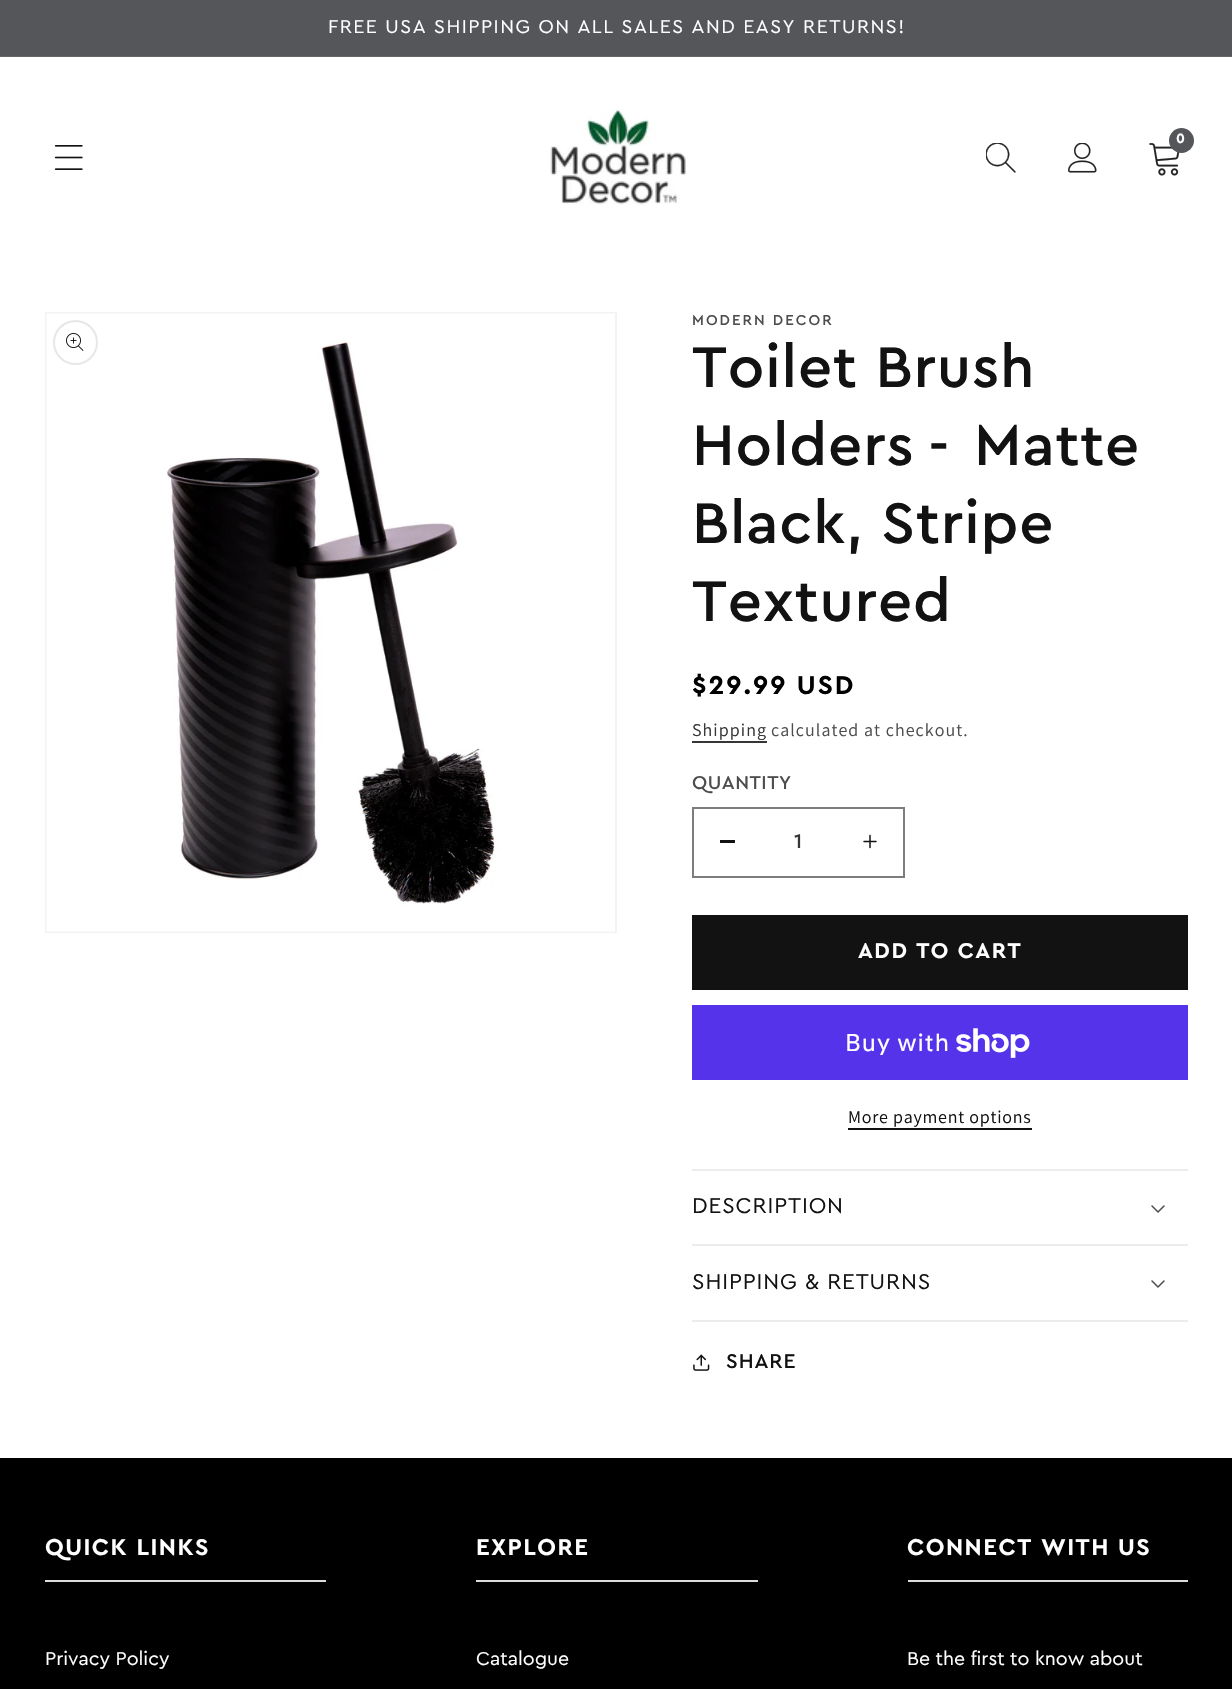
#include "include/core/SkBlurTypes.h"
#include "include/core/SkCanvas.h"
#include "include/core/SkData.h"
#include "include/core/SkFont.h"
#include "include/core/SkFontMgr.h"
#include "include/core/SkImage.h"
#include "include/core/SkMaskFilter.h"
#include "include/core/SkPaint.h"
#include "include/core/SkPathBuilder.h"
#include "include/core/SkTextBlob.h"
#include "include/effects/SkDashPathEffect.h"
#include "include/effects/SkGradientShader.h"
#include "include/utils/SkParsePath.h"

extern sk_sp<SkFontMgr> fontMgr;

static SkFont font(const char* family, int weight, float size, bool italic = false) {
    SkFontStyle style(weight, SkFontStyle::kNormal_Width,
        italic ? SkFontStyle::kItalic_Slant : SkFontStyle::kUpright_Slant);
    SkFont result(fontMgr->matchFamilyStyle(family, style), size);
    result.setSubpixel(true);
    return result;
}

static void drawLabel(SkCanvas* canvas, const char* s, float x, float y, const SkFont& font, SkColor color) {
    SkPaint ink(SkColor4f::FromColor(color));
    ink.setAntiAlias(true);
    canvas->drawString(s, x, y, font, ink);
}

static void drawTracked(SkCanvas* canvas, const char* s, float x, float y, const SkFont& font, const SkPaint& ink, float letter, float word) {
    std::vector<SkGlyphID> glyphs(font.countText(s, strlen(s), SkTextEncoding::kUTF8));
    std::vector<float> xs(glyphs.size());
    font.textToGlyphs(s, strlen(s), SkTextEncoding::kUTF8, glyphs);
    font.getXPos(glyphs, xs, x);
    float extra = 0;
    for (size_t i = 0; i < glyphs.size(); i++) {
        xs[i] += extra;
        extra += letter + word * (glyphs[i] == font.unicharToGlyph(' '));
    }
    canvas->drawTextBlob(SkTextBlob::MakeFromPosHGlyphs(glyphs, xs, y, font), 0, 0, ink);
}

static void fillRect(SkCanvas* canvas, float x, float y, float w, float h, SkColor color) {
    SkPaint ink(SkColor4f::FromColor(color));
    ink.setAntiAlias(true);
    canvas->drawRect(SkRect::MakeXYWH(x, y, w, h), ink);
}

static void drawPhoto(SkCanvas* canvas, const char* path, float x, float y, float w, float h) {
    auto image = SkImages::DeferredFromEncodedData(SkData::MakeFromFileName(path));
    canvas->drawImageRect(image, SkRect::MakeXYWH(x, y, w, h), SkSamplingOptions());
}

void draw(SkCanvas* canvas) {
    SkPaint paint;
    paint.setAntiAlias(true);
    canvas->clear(0xFFFFFFFF);
    fillRect(canvas, 0, 0, 1232, 56, 0xFF54565A);
    fillRect(canvas, 0, 56, 1232, 1, 0xFF626467);
    SkFont font1 = font("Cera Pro", 400, 19.5f);
    paint.setColor(0xFFFFFFFF);
    drawTracked(canvas, "FREE USA SHIPPING ON ALL SALES AND EASY RETURNS!", 328, 33, font1, paint, 1.5f, 0);
    drawPhoto(canvas, "assets/img1.png", 550, 109, 136, 96);
    drawPhoto(canvas, "assets/img2.png", 1149, 143, 31, 33);
    paint.setColor(0xFF54565A);
    canvas->drawCircle(1181.5f, 140.5f, 12.5f, paint);
    SkFont font2 = font("Cera Pro", 700, 14);
    paint.setColor(0xFFFFFFFF);
    drawTracked(canvas, "0", 1176, 143, font2, paint, 0.9f, 0);
    drawPhoto(canvas, "assets/img3.png", 986, 143, 30, 30);
    drawPhoto(canvas, "assets/img4.png", 1068, 143, 29, 30);
    drawPhoto(canvas, "assets/img5.png", 54, 145, 29, 25);
    paint.setStroke(true);
    paint.setStrokeWidth(2);
    paint.setColor(0xFFF3F3F3);
    canvas->drawRect(SkRect::MakeXYWH(46, 313, 570, 619), paint);
    drawPhoto(canvas, "assets/img6.png", 46, 313, 569, 619);
    paint.setColor(0xFFE7E7E7);
    canvas->drawCircle(75.5f, 342.5f, 21.5f, paint);
    drawPhoto(canvas, "assets/img7.png", 66, 333, 18, 18);
    SkFont font3 = font("Cera Pro", 500, 15);
    paint.setStroke(false);
    paint.setColor(0xFF4D4D4D);
    drawTracked(canvas, "MODERN DECOR", 692, 325, font3, paint, 2, 0);
    SkFont font4 = font("Cera Pro", 500, 60);
    paint.setColor(0xFF121212);
    drawTracked(canvas, "Toilet Brush", 692, 387, font4, paint, 0.9f, 0);
    drawTracked(canvas, "Holders -", 692, 465, font4, paint, 0.9f, -4);
    drawTracked(canvas, "Matte", 974, 465, font4, paint, 0.9f, -4);
    drawTracked(canvas, "Black, Stripe", 692, 543, font4, paint, 0.9f, 0);
    drawTracked(canvas, "Textured", 692, 621, font4, paint, 0.9f, 0);
    SkFont font5 = font("Cera Pro", 700, 27);
    paint.setColor(0xFF000000);
    drawTracked(canvas, "$29.99 USD", 692, 694, font5, paint, 2, 0);
    SkFont font6 = font("Assistant", 400, 18);
    paint.setColor(0xFF363636);
    drawTracked(canvas, "Shipping", 692, 736, font6, paint, 1.05f, 0);
    fillRect(canvas, 692, 741, 75, 2, 0xFF363636);
    paint.setColor(0xFF4D4D4D);
    drawTracked(canvas, "calculated at checkout.", 771, 736, font6, paint, 1.05f, 0);
    SkFont font7 = font("Cera Pro", 500, 19.5f);
    drawTracked(canvas, "QUANTITY", 692, 789, font7, paint, 0.5f, 0);
    fillRect(canvas, 720, 840, 15, 3, 0xFF121212);
    drawPhoto(canvas, "assets/img8.png", 863, 834, 14, 15);
    paint.setStroke(true);
    paint.setColor(0xFF7D7D7D);
    canvas->drawRect(SkRect::MakeXYWH(693, 808, 211, 69), paint);
    SkFont font8 = font("Cera Pro", 500, 21);
    drawLabel(canvas, "1", 794, 848, font8, 0xFF363636);
    fillRect(canvas, 692, 915, 496, 75, 0xFF121212);
    SkFont font9 = font("Cera Pro", 700, 22.5f);
    paint.setStroke(false);
    paint.setColor(0xFFFFFFFF);
    drawTracked(canvas, "ADD TO CART", 858, 958, font9, paint, 1.5f, 0);
    fillRect(canvas, 692, 1005, 496, 75, 0xFF5433EB);
    SkFont font10 = font("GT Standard", 400, 24);
    drawTracked(canvas, "Buy with", 845, 1051, font10, paint, 0.9f, 0);
    drawPhoto(canvas, "assets/img9.png", 956, 1028, 74, 30);
    paint.setColor(0xFF121212);
    drawTracked(canvas, "More payment options", 848, 1123, font6, paint, 0.75f, 0);
    fillRect(canvas, 848, 1128, 184, 2, 0xFF121212);
    fillRect(canvas, 692, 1169, 496, 2, 0xFFECECEC);
    fillRect(canvas, 692, 1244, 496, 2, 0xFFECECEC);
    SkFont font11 = font("Cera Pro", 400, 22.5f);
    drawTracked(canvas, "DESCRIPTION", 692, 1213, font11, paint, 0.9f, 0);
    drawPhoto(canvas, "assets/img10.png", 1151, 1205, 14, 8);
    fillRect(canvas, 692, 1320, 496, 2, 0xFFECECEC);
    drawTracked(canvas, "SHIPPING & RETURNS", 692, 1289, font11, paint, 0.9f, 0);
    drawPhoto(canvas, "assets/img10.png", 1151, 1280, 14, 8);
    drawPhoto(canvas, "assets/img11.png", 693, 1354, 17, 17);
    drawTracked(canvas, "SHARE", 726, 1368, font8, paint, 0.9f, 0);
    fillRect(canvas, 0, 1458, 1232, 231, 0xFF000000);
    fillRect(canvas, 45, 1580, 281, 2, 0xFFDDDDDD);
    SkFont font12 = font("Cera Pro", 700, 24);
    paint.setColor(0xFFFFFFFF);
    drawTracked(canvas, "QUICK LINKS", 45, 1555, font12, paint, 1.5f, 0);
    drawLabel(canvas, "Privacy Policy", 45, 1665, font1, 0xFFFFFFFF);
    fillRect(canvas, 476, 1580, 282, 2, 0xFFDDDDDD);
    drawTracked(canvas, "EXPLORE", 476, 1555, font12, paint, 1.5f, 0);
    drawLabel(canvas, "Catalogue", 476, 1665, font1, 0xFFFFFFFF);
    fillRect(canvas, 908, 1580, 280, 2, 0xFFDDDDDD);
    drawTracked(canvas, "CONNECT WITH US", 907, 1555, font12, paint, 1.5f, 0);
    drawLabel(canvas, "Be the first to know about", 907, 1665, font1, 0xFFFFFFFF);
}
